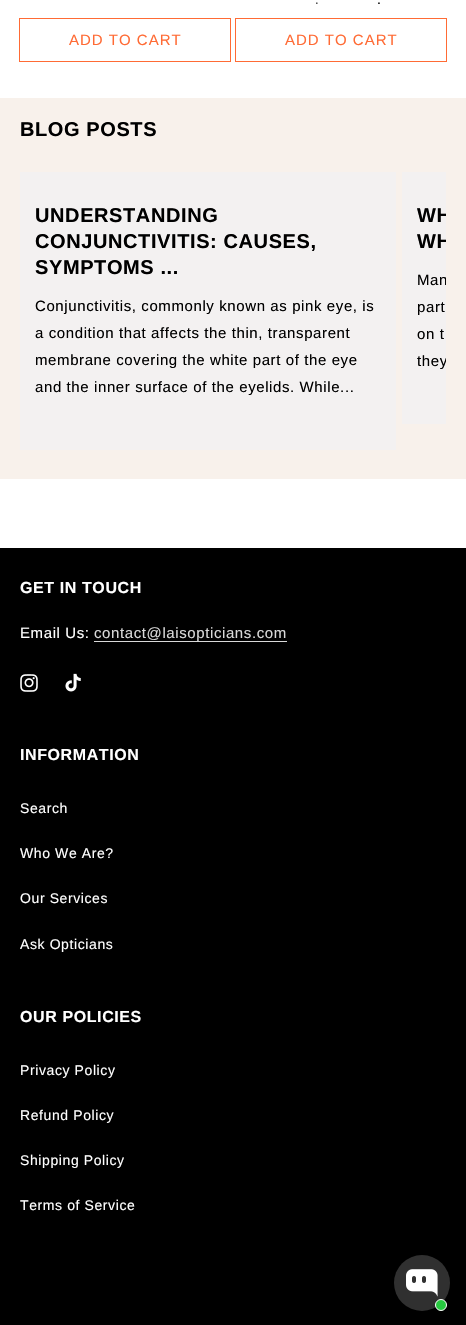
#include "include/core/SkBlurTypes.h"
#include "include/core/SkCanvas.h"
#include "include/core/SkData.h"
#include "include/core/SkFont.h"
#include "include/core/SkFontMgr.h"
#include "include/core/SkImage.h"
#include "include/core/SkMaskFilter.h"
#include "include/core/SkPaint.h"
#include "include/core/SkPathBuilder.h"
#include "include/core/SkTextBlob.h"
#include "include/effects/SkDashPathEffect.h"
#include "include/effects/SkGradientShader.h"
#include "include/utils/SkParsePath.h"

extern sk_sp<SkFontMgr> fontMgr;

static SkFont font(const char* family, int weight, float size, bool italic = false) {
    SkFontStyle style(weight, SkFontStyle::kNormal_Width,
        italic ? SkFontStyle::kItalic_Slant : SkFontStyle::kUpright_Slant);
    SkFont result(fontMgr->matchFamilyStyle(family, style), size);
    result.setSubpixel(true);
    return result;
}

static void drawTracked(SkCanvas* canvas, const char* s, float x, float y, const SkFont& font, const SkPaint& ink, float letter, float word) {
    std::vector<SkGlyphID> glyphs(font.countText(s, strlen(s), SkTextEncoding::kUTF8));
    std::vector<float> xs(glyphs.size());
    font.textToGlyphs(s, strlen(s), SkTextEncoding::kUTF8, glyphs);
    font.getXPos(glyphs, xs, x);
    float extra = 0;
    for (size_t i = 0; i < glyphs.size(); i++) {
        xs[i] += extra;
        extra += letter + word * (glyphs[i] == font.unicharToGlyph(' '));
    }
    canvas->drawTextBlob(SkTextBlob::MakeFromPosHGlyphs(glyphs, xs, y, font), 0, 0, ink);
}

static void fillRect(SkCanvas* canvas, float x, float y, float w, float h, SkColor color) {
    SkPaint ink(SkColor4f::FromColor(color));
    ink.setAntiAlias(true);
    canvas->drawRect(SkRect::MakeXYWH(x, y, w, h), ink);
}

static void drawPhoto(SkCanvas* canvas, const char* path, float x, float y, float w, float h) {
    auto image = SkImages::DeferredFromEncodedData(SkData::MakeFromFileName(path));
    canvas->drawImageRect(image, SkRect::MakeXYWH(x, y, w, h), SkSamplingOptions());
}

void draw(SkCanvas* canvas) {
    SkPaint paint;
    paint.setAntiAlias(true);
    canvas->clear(0xFFFFFFFF);
    paint.setStroke(true);
    paint.setStrokeWidth(1);
    paint.setColor(0xFFFF6B35);
    canvas->drawRect(SkRect::MakeXYWH(19.5f, 18.5f, 211, 43), paint);
    SkFont font1 = font("Arimo", 400, 15);
    paint.setStroke(false);
    drawTracked(canvas, "ADD TO CART", 69, 45, font1, paint, 1, 0);
    SkFont font2 = font("Arimo", 400, 13);
    paint.setColor(0xFF404040);
    drawTracked(canvas, ".", 315, 4, font2, paint, 1, 0);
    SkFont font3 = font("Arimo", 400, 14);
    paint.setColor(0xFF000000);
    drawTracked(canvas, ".", 377, 4, font3, paint, 1, 0);
    paint.setStroke(true);
    paint.setColor(0xFFFF6B35);
    canvas->drawRect(SkRect::MakeXYWH(235.5f, 18.5f, 211, 43), paint);
    paint.setStroke(false);
    drawTracked(canvas, "ADD TO CART", 285, 45, font1, paint, 1, 0);
    fillRect(canvas, 0, 98, 466, 381, 0xFFF8F1EB);
    SkFont font4 = font("Arimo", 700, 20);
    paint.setColor(0xFF000000);
    drawTracked(canvas, "BLOG POSTS", 20, 136, font4, paint, 0.6f, 0);
    fillRect(canvas, 20, 172, 376, 278, 0xFFF3F1F1);
    drawTracked(canvas, "UNDERSTANDING", 35, 222, font4, paint, 0.6f, 0);
    drawTracked(canvas, "CONJUNCTIVITIS: CAUSES,", 35, 248, font4, paint, 0.6f, 0);
    drawTracked(canvas, "SYMPTOMS ...", 35, 274, font4, paint, 0.6f, 0);
    drawTracked(canvas, "Conjunctivitis, commonly known as pink eye, is", 35, 311, font1, paint, 0.6f, 0);
    drawTracked(canvas, "a condition that affects the thin, transparent", 35, 338, font1, paint, 0.6f, 0);
    drawTracked(canvas, "membrane covering the white part of the eye", 35, 365, font1, paint, 0.6f, 0);
    drawTracked(canvas, "and the inner surface of the eyelids. While...", 35, 392, font1, paint, 0.6f, 0);
    fillRect(canvas, 402, 172, 44, 252, 0xFFF3F1F1);
    canvas->save();
    canvas->clipRect(SkRect::MakeXYWH(20, 172, 426, 279));
    drawTracked(canvas, "WH", 417, 222, font4, paint, 0.6f, 0);
    drawTracked(canvas, "WH", 417, 248, font4, paint, 0.6f, 0);
    drawTracked(canvas, "Man", 417, 285, font1, paint, 0.6f, 0);
    canvas->restore();
    drawTracked(canvas, "part", 417, 312, font1, paint, 0.6f, 0);
    drawTracked(canvas, "on t", 417, 339, font1, paint, 0.6f, 0);
    canvas->save();
    canvas->clipRect(SkRect::MakeXYWH(20, 172, 426, 279));
    drawTracked(canvas, "they", 417, 366, font1, paint, 0.6f, 0);
    canvas->restore();
    fillRect(canvas, 0, 548, 466, 777, 0xFF000000);
    SkFont font5 = font("Arimo", 700, 16);
    paint.setColor(0xFFFFFFFF);
    drawTracked(canvas, "GET IN TOUCH", 20, 593, font5, paint, 0.6f, 0);
    drawTracked(canvas, "Email Us:", 20, 638, font1, paint, 0.6f, 0);
    fillRect(canvas, 94, 641, 193, 1, 0xFFD9D9D9);
    paint.setColor(0xFFD9D9D9);
    drawTracked(canvas, "contact@laisopticians.com", 94, 638, font1, paint, 0.6f, 0);
    drawPhoto(canvas, "assets/img1.png", 20, 674, 18, 18);
    drawPhoto(canvas, "assets/img2.png", 65, 673, 16, 19);
    paint.setColor(0xFFFFFFFF);
    drawTracked(canvas, "INFORMATION", 20, 760, font5, paint, 0.6f, 0);
    drawTracked(canvas, "Search", 20, 813, font3, paint, 0.6f, 0);
    drawTracked(canvas, "Who We Are?", 20, 858, font3, paint, 0.6f, 0);
    drawTracked(canvas, "Our Services", 20, 903, font3, paint, 0.6f, 0);
    drawTracked(canvas, "Ask Opticians", 20, 949, font3, paint, 0.6f, 0);
    drawTracked(canvas, "OUR POLICIES", 20, 1022, font5, paint, 0.6f, 0);
    drawTracked(canvas, "Privacy Policy", 20, 1075, font3, paint, 0.6f, 0);
    drawTracked(canvas, "Refund Policy", 20, 1120, font3, paint, 0.6f, 0);
    drawTracked(canvas, "Shipping Policy", 20, 1165, font3, paint, 0.6f, 0);
    drawTracked(canvas, "Terms of Service", 20, 1210, font3, paint, 0.6f, 0);
    paint.setColor(0xFF303030);
    canvas->drawCircle(422, 1283, 28, paint);
    drawPhoto(canvas, "assets/img3.png", 406, 1269, 32, 28);
    paint.setColor(0xFF27CA40);
    canvas->drawCircle(441, 1305, 5.5f, paint);
    paint.setStroke(true);
    paint.setColor(0xFFFFFFFF);
    canvas->drawCircle(441, 1305, 5.5f, paint);
}
